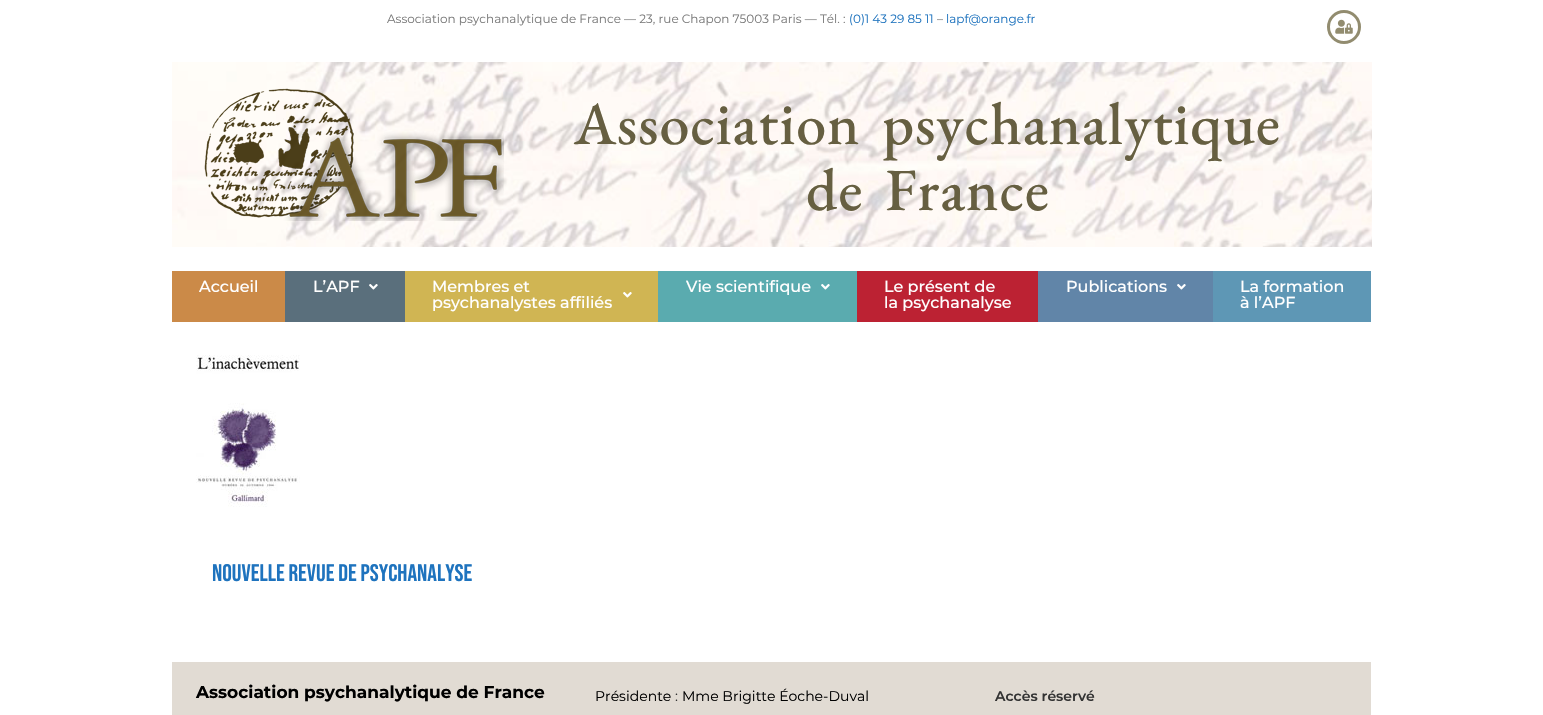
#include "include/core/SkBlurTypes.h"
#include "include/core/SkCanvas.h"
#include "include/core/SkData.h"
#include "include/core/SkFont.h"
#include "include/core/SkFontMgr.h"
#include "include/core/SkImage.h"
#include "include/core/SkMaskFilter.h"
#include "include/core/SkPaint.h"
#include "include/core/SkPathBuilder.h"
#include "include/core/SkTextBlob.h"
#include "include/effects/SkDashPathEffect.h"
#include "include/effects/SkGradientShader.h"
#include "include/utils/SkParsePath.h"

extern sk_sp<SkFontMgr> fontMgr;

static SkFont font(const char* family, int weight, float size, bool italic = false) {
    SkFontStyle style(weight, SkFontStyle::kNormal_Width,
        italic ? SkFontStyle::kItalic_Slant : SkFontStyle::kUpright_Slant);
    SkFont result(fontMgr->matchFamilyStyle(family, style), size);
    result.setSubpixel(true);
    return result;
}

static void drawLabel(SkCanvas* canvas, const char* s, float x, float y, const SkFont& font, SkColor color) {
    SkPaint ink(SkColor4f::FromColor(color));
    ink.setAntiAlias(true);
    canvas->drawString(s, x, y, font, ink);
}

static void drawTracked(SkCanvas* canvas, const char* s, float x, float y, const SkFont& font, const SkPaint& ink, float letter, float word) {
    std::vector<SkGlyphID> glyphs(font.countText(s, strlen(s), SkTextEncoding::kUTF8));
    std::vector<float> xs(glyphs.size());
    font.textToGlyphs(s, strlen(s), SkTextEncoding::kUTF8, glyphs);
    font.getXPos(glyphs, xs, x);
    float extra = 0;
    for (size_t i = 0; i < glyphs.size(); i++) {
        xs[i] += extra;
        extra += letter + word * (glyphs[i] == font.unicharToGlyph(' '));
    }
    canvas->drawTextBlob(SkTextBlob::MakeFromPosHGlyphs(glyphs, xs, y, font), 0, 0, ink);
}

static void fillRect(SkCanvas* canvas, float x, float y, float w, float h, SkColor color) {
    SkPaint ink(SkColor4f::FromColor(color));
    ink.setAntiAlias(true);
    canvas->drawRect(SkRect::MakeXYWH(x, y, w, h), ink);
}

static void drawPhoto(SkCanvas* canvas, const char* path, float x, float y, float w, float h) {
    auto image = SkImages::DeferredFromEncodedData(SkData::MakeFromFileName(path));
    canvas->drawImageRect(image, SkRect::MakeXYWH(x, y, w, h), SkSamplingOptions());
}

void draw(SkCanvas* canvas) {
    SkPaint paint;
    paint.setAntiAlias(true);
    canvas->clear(0xFFFFFFFF);
    SkFont font1 = font("Montserrat", 400, 12);
    drawLabel(canvas, "Association psychanalytique de France — 23, rue Chapon 75003 Paris — Tél. :", 387, 23, font1, 0xFF7A7A7A);
    drawLabel(canvas, "(0)1 43 29 85 11", 849, 23, font1, 0xFF1E73BE);
    drawLabel(canvas, "–", 937, 23, font1, 0xFF7A7A7A);
    drawLabel(canvas, "lapf@orange.fr", 946, 23, font1, 0xFF1E73BE);
    paint.setStroke(true);
    paint.setStrokeWidth(3);
    paint.setColor(0xFF928C6F);
    canvas->drawCircle(1344, 27, 15.5f, paint);
    drawPhoto(canvas, "assets/img1.png", 1335, 19, 18, 15);
    drawPhoto(canvas, "assets/img2.png", 172, 62, 1200, 185);
    drawPhoto(canvas, "assets/img3.png", 204, 88, 300, 133);
    SkFont font2 = font("EB Garamond", 500, 60);
    paint.setStroke(false);
    paint.setColor(0xFF665F41);
    drawTracked(canvas, "Association psychanalytique", 574, 144, font2, paint, 1, 8);
    drawTracked(canvas, "de France", 806, 210, font2, paint, 1, 8);
    fillRect(canvas, 172, 271, 113, 51, 0xFFCB8A48);
    SkFont font3 = font("Montserrat", 500, 16);
    drawLabel(canvas, "Accueil", 199, 292, font3, 0xFFFFFFFF);
    fillRect(canvas, 285, 271, 120, 51, 0xFF5A6F7C);
    drawLabel(canvas, "L’APF", 313, 292, font3, 0xFFFFFFFF);
    drawPhoto(canvas, "assets/img4.png", 369, 284, 9, 6);
    fillRect(canvas, 405, 271, 253, 51, 0xFFD0B553);
    drawLabel(canvas, "Membres et", 432, 292, font3, 0xFFFFFFFF);
    drawLabel(canvas, "psychanalystes affiliés", 432, 308, font3, 0xFFFFFFFF);
    drawPhoto(canvas, "assets/img5.png", 623, 292, 9, 6);
    fillRect(canvas, 658, 271, 199, 51, 0xFF5AABAF);
    drawLabel(canvas, "Vie scientifique", 686, 292, font3, 0xFFFFFFFF);
    drawPhoto(canvas, "assets/img6.png", 821, 284, 9, 6);
    fillRect(canvas, 857, 271, 181, 51, 0xFFBC2233);
    drawLabel(canvas, "Le présent de", 884, 292, font3, 0xFFFFFFFF);
    drawLabel(canvas, "la psychanalyse", 884, 308, font3, 0xFFFFFFFF);
    fillRect(canvas, 1038, 271, 175, 51, 0xFF6185A8);
    drawLabel(canvas, "Publications", 1066, 292, font3, 0xFFFFFFFF);
    drawPhoto(canvas, "assets/img7.png", 1177, 284, 9, 6);
    fillRect(canvas, 1213, 271, 158, 51, 0xFF5E97B5);
    drawLabel(canvas, "La formation", 1240, 292, font3, 0xFFFFFFFF);
    drawLabel(canvas, "à l’APF", 1240, 308, font3, 0xFFFFFFFF);
    drawPhoto(canvas, "assets/img8.png", 196, 355, 104, 152);
    SkFont font4 = font("Bebas Neue", 400, 24);
    drawLabel(canvas, "Nouvelle Revue de Psychanalyse", 212, 581, font4, 0xFF1E73BE);
    fillRect(canvas, 172, 662, 1199, 53, 0xFFE1DBD3);
    SkFont font5 = font("Montserrat", 700, 17);
    drawLabel(canvas, "Association psychanalytique de France", 196, 698, font5, 0xFF000000);
    SkFont font6 = font("Montserrat", 400, 14);
    drawLabel(canvas, "Présidente", 595, 701, font6, 0xFF000000);
    drawLabel(canvas, ":", 675, 701, font6, 0xFF333333);
    drawLabel(canvas, "Mme Brigitte Éoche-Duval", 682, 701, font6, 0xFF000000);
    SkFont font7 = font("Montserrat", 600, 14);
    drawLabel(canvas, "Accès réservé", 995, 701, font7, 0xFF333333);
}
